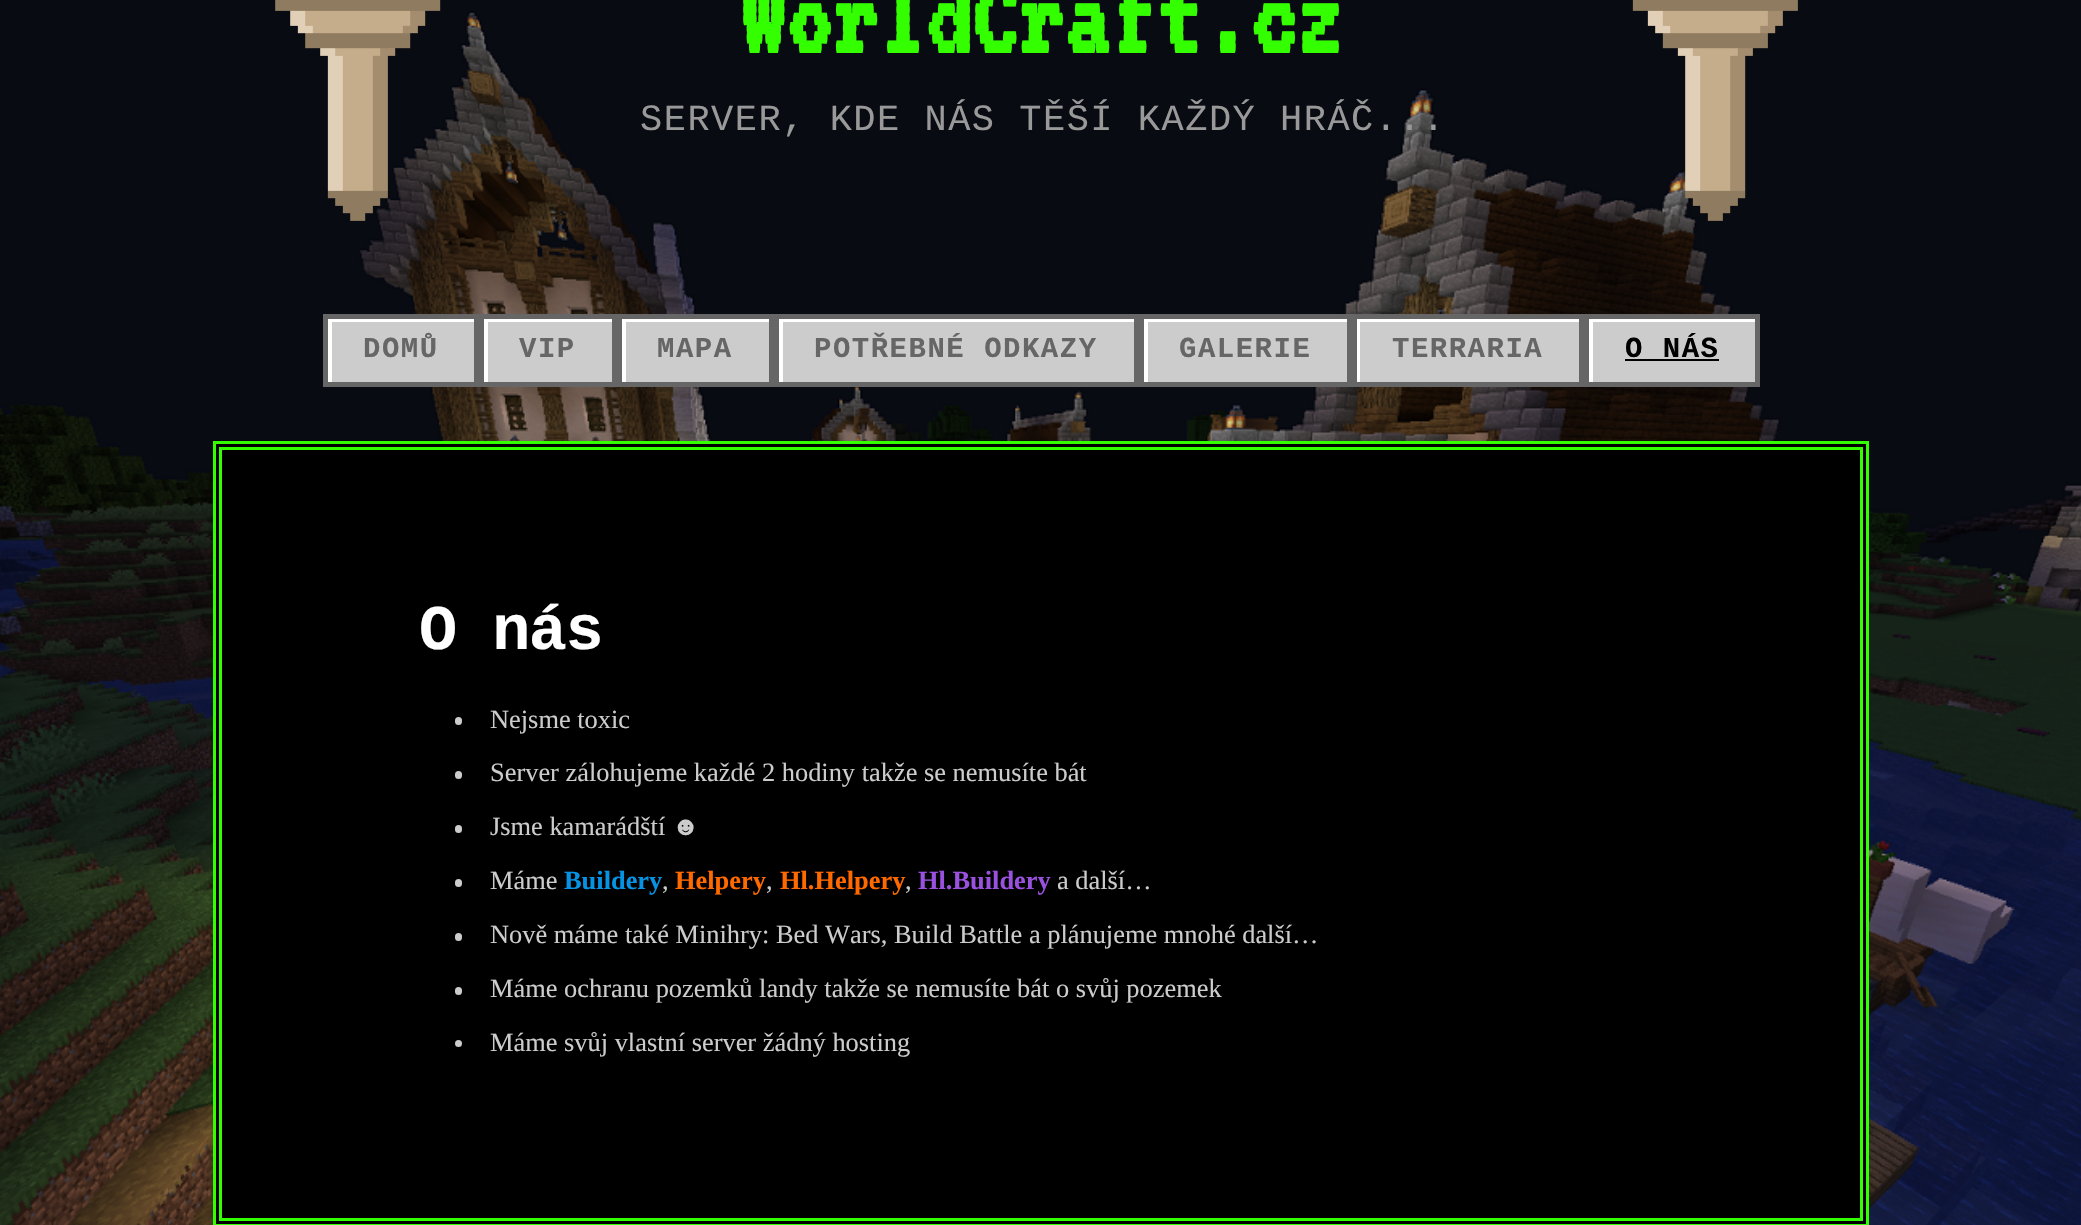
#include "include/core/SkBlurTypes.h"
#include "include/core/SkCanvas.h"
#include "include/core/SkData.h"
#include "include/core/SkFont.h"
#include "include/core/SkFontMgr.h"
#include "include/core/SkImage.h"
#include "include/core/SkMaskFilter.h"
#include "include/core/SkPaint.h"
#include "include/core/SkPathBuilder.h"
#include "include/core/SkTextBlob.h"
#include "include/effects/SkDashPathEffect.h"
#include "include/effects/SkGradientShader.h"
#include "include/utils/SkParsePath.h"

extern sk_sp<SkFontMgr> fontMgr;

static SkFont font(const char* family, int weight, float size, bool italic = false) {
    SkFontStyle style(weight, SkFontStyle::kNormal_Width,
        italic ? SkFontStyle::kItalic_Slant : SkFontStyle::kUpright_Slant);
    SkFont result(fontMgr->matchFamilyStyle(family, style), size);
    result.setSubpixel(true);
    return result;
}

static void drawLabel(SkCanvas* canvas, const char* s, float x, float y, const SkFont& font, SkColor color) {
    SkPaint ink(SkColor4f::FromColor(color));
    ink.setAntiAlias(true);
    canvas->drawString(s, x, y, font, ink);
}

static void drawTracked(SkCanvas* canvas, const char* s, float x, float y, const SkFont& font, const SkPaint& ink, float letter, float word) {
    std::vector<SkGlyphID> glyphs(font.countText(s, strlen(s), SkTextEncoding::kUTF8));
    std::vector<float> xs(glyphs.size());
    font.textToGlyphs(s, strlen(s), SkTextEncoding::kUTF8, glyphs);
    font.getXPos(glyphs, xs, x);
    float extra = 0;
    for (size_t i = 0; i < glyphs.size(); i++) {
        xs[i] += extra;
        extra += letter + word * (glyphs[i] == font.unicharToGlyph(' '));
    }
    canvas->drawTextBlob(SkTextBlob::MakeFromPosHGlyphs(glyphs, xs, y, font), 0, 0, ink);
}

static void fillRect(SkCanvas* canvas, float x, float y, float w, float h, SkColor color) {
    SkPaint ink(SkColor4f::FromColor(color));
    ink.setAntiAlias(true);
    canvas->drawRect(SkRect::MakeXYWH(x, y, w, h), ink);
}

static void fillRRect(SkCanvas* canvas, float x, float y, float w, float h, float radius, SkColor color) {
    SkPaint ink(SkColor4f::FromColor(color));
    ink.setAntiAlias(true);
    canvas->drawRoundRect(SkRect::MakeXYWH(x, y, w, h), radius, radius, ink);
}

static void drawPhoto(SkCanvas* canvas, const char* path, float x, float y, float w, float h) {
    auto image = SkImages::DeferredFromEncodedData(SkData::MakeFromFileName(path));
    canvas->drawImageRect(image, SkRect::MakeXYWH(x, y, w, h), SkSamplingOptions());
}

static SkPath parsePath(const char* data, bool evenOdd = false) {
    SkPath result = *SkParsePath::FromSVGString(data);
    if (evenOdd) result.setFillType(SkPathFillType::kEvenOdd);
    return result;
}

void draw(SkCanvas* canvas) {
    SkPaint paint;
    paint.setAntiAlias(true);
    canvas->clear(0xFFFFFFFF);
    drawPhoto(canvas, "assets/img1.png", 0, 0, 2081, 1225);
    drawPhoto(canvas, "assets/img2.png", 275, 0, 166, 221);
    SkFont font1 = font("VT323", 700, 116);
    drawLabel(canvas, "WorldCraft.cz", 739, 53, font1, 0xFF33FF00);
    SkFont font2 = font("Liberation Mono", 400, 37);
    paint.setColor(0xFF999999);
    drawTracked(canvas, "SERVER, KDE NÁS TĚŠÍ KAŽDÝ HRÁČ...", 640, 130, font2, paint, 1.5f, 0);
    drawPhoto(canvas, "assets/img3.png", 1632, 0, 166, 221);
    fillRect(canvas, 332, 322, 142, 60, 0xFFCCCCCC);
    canvas->save();
    canvas->clipRect(SkRect::MakeXYWH(327, 318, 147, 65));
    paint.setColor(0xFFFFFFFF);
    canvas->drawPath(parsePath("M178 170H622V531H178ZM332 322H478V387H332Z", true), paint);
    canvas->restore();
    paint.setStroke(true);
    paint.setStrokeWidth(5);
    paint.setColor(0xFF666666);
    canvas->drawRect(SkRect::MakeXYWH(325.5f, 316.5f, 151, 68), paint);
    SkFont font3 = font("Liberation Mono", 700, 29);
    paint.setStroke(false);
    drawTracked(canvas, "DOMŮ", 363, 357, font3, paint, 1.5f, 0);
    fillRect(canvas, 488, 322, 124, 60, 0xFFCCCCCC);
    canvas->save();
    canvas->clipRect(SkRect::MakeXYWH(483, 318, 129, 65));
    paint.setColor(0xFFFFFFFF);
    canvas->drawPath(parsePath("M334 170H760V531H334ZM488 322H616V387H488Z", true), paint);
    canvas->restore();
    paint.setStroke(true);
    paint.setColor(0xFF666666);
    canvas->drawRect(SkRect::MakeXYWH(481.5f, 316.5f, 133, 68), paint);
    paint.setStroke(false);
    drawTracked(canvas, "VIP", 519, 357, font3, paint, 1.5f, 0);
    fillRect(canvas, 626, 322, 143, 60, 0xFFCCCCCC);
    canvas->save();
    canvas->clipRect(SkRect::MakeXYWH(621, 318, 149, 65));
    paint.setColor(0xFFFFFFFF);
    canvas->drawPath(parsePath("M472 170H918V531H472ZM626 322H774V387H626Z", true), paint);
    canvas->restore();
    paint.setStroke(true);
    paint.setColor(0xFF666666);
    canvas->drawRect(SkRect::MakeXYWH(619.5f, 316.5f, 152, 68), paint);
    paint.setStroke(false);
    drawTracked(canvas, "MAPA", 657, 357, font3, paint, 1.5f, 0);
    fillRect(canvas, 783, 322, 351, 60, 0xFFCCCCCC);
    canvas->save();
    canvas->clipRect(SkRect::MakeXYWH(779, 318, 355, 65));
    paint.setColor(0xFFFFFFFF);
    canvas->drawPath(parsePath("M630 170H1282V531H630ZM783 322H1138V387H783Z", true), paint);
    canvas->restore();
    paint.setStroke(true);
    paint.setColor(0xFF666666);
    canvas->drawRect(SkRect::MakeXYWH(776.5f, 316.5f, 360, 68), paint);
    paint.setStroke(false);
    drawTracked(canvas, "POTŘEBNÉ ODKAZY", 814, 357, font3, paint, 1.5f, 0);
    fillRect(canvas, 1148, 322, 199, 60, 0xFFCCCCCC);
    canvas->save();
    canvas->clipRect(SkRect::MakeXYWH(1143, 318, 204, 65));
    paint.setColor(0xFFFFFFFF);
    canvas->drawPath(parsePath("M994 170H1496V531H994ZM1148 322H1352V387H1148Z", true), paint);
    canvas->restore();
    paint.setStroke(true);
    paint.setColor(0xFF666666);
    canvas->drawRect(SkRect::MakeXYWH(1141.5f, 316.5f, 208, 68), paint);
    paint.setStroke(false);
    drawTracked(canvas, "GALERIE", 1179, 357, font3, paint, 1.5f, 0);
    fillRect(canvas, 1360, 322, 219, 60, 0xFFCCCCCC);
    canvas->save();
    canvas->clipRect(SkRect::MakeXYWH(1356, 318, 224, 65));
    paint.setColor(0xFFFFFFFF);
    canvas->drawPath(parsePath("M1208 170H1728V531H1208ZM1360 322H1584V387H1360Z", true), paint);
    canvas->restore();
    paint.setStroke(true);
    paint.setColor(0xFF666666);
    canvas->drawRect(SkRect::MakeXYWH(1354.5f, 316.5f, 227, 68), paint);
    paint.setStroke(false);
    drawTracked(canvas, "TERRARIA", 1392, 357, font3, paint, 1.5f, 0);
    fillRect(canvas, 1593, 322, 162, 60, 0xFFCCCCCC);
    canvas->save();
    canvas->clipRect(SkRect::MakeXYWH(1589, 318, 166, 65));
    paint.setColor(0xFFFFFFFF);
    canvas->drawPath(parsePath("M1440 170H1904V531H1440ZM1593 322H1760V387H1593Z", true), paint);
    canvas->restore();
    paint.setStroke(true);
    paint.setColor(0xFF666666);
    canvas->drawRect(SkRect::MakeXYWH(1586.5f, 316.5f, 171, 68), paint);
    paint.setStroke(false);
    paint.setColor(0xFF000000);
    drawTracked(canvas, "O NÁS", 1625, 357, font3, paint, 1.5f, 0);
    fillRect(canvas, 1625, 359, 94, 2, 0xFF000000);
    canvas->drawRect(SkRect::MakeXYWH(214.5f, 442.5f, 1653, 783), paint);
    paint.setStroke(true);
    paint.setStrokeWidth(3);
    paint.setColor(0xFF33FF00);
    canvas->drawRect(SkRect::MakeXYWH(214.5f, 442.5f, 1653, 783), paint);
    canvas->drawRect(SkRect::MakeXYWH(220.5f, 448.5f, 1641, 771), paint);
    SkFont font4 = font("Liberation Mono", 700, 63.5f);
    paint.setStroke(false);
    paint.setColor(0xFFFFFFFF);
    drawTracked(canvas, "O nás", 419, 649, font4, paint, -1.5f, 0);
    fillRRect(canvas, 455, 717, 7, 8, 3.5f, 0xFFCCCCCC);
    SkFont font5 = font("Liberation Serif", 400, 26.4f);
    drawLabel(canvas, "Nejsme toxic", 490, 728, font5, 0xFFCCCCCC);
    fillRRect(canvas, 455, 771, 7, 8, 3.5f, 0xFFCCCCCC);
    drawLabel(canvas, "Server zálohujeme každé 2 hodiny takže se nemusíte bát", 490, 781, font5, 0xFFCCCCCC);
    fillRRect(canvas, 455, 825, 7, 8, 3.5f, 0xFFCCCCCC);
    drawLabel(canvas, "Jsme kamarádští ☻", 490, 835, font5, 0xFFCCCCCC);
    fillRRect(canvas, 455, 879, 7, 8, 3.5f, 0xFFCCCCCC);
    drawLabel(canvas, "Máme", 490, 889, font5, 0xFFCCCCCC);
    SkFont font6 = font("Liberation Serif", 700, 26.4f);
    drawLabel(canvas, "Buildery", 564, 889, font6, 0xFF0693E3);
    drawLabel(canvas, "Helpery", 675, 889, font6, 0xFFFF6900);
    drawLabel(canvas, "Hl.Helpery", 780, 889, font6, 0xFFFF6900);
    drawLabel(canvas, "Hl.Buildery", 918, 889, font6, 0xFF9B51E0);
    drawLabel(canvas, "a další…", 1057, 889, font5, 0xFFCCCCCC);
    drawLabel(canvas, ",", 662, 889, font5, 0xFFCCCCCC);
    drawLabel(canvas, ",", 766, 889, font5, 0xFFCCCCCC);
    drawLabel(canvas, ",", 905, 889, font5, 0xFFCCCCCC);
    fillRRect(canvas, 455, 933, 7, 8, 3.5f, 0xFFCCCCCC);
    drawLabel(canvas, "Nově máme také Minihry: Bed Wars, Build Battle a plánujeme mnohé další…", 490, 943, font5, 0xFFCCCCCC);
    fillRRect(canvas, 455, 987, 7, 8, 3.5f, 0xFFCCCCCC);
    drawLabel(canvas, "Máme ochranu pozemků landy takže se nemusíte bát o svůj pozemek", 490, 997, font5, 0xFFCCCCCC);
    paint.setColor(0xFFCCCCCC);
    canvas->drawCircle(458.5f, 1043.5f, 3.5f, paint);
    drawLabel(canvas, "Máme svůj vlastní server žádný hosting", 490, 1051, font5, 0xFFCCCCCC);
}
